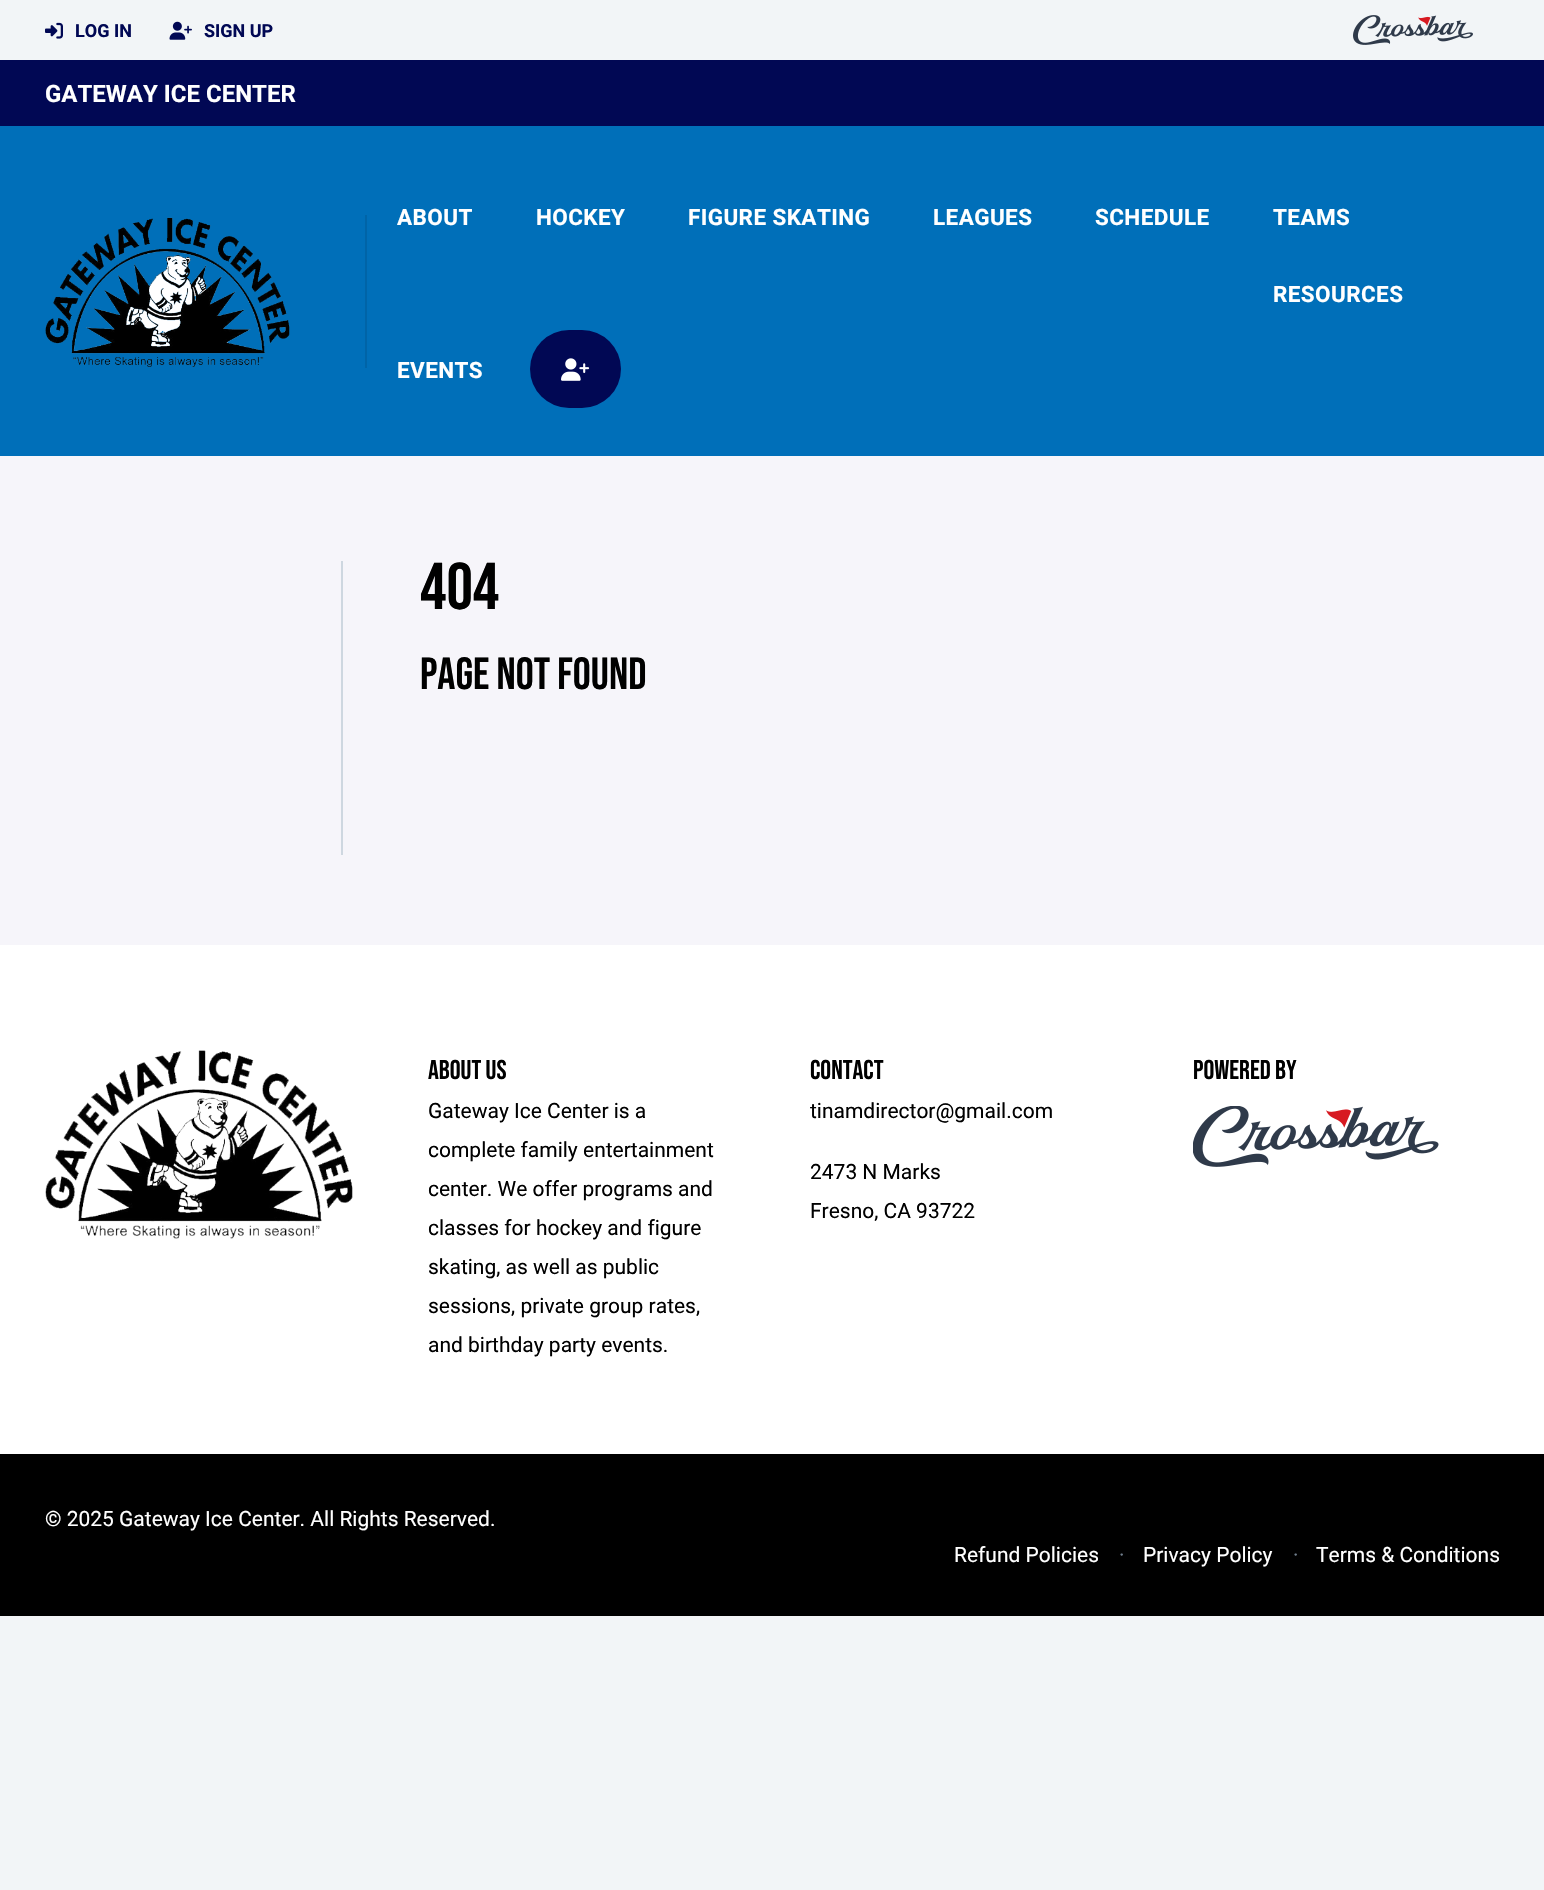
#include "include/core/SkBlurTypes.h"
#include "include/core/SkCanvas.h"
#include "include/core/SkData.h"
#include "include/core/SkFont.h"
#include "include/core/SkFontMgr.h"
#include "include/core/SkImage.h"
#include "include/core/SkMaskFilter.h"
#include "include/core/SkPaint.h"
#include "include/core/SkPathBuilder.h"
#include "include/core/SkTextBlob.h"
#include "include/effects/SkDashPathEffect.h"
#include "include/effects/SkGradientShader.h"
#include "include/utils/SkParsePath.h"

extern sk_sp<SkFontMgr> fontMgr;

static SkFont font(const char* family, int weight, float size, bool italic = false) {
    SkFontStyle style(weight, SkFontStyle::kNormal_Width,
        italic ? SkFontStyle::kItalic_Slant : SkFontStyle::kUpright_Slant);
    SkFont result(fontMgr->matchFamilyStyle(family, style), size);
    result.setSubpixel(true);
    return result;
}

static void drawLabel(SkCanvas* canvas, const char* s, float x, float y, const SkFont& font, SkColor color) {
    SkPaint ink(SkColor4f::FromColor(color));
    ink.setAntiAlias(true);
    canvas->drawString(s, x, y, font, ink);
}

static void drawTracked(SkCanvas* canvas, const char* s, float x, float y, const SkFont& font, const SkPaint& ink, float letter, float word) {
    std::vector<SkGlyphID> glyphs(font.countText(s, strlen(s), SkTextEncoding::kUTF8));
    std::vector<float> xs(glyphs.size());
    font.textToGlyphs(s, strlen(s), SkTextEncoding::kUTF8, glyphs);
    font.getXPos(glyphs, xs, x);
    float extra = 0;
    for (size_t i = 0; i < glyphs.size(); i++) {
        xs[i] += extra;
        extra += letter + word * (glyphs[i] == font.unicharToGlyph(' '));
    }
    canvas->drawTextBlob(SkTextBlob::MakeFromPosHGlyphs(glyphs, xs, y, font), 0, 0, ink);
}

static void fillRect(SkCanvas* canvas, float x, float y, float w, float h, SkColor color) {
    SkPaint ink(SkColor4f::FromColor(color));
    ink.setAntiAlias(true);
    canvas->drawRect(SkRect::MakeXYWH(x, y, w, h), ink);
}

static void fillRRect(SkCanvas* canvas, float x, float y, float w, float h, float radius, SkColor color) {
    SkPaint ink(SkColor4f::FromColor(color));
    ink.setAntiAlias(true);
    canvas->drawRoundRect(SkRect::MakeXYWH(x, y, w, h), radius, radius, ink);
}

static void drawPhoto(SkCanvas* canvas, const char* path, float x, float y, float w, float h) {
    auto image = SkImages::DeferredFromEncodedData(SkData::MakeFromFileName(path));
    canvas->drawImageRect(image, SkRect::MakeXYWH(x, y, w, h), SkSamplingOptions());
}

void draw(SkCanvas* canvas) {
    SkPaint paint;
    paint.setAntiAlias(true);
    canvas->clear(0xFFF2F5F7);
    drawPhoto(canvas, "assets/img1.png", 45, 22, 18, 17);
    SkFont font1 = font("Roboto", 700, 18);
    drawLabel(canvas, "LOG IN", 75, 37, font1, 0xFF010854);
    drawPhoto(canvas, "assets/img2.png", 169, 21, 23, 19);
    drawLabel(canvas, "SIGN UP", 204, 37, font1, 0xFF010854);
    drawPhoto(canvas, "assets/img3.png", 1353, 15, 120, 30);
    fillRect(canvas, 0, 60, 1544, 66, 0xFF010854);
    SkFont font2 = font("Roboto", 700, 24);
    drawLabel(canvas, "GATEWAY ICE CENTER", 45, 102, font2, 0xFFFFFFFF);
    fillRect(canvas, 0, 126, 1544, 330, 0xFF006FB9);
    fillRect(canvas, 365, 215, 2, 153, 0xFF0064A7);
    drawPhoto(canvas, "assets/img4.png", 45, 217, 245, 151);
    SkFont font3 = font("Roboto", 700, 22.5f);
    paint.setColor(0xFFFFFFFF);
    drawTracked(canvas, "ABOUT", 397, 225, font3, paint, 0.4f, 0);
    drawTracked(canvas, "HOCKEY", 536, 225, font3, paint, 0.4f, 0);
    drawTracked(canvas, "FIGURE SKATING", 688, 225, font3, paint, 0.4f, 0);
    drawTracked(canvas, "LEAGUES", 933, 225, font3, paint, 0.4f, 0);
    drawTracked(canvas, "SCHEDULE", 1095, 225, font3, paint, 0.4f, 0);
    drawTracked(canvas, "TEAMS", 1273, 225, font3, paint, 0.4f, 0);
    drawTracked(canvas, "RESOURCES", 1273, 302, font3, paint, 0.4f, 0);
    drawTracked(canvas, "EVENTS", 397, 378, font3, paint, 0.4f, 0);
    fillRRect(canvas, 530, 330, 91, 78, 39, 0xFF010854);
    drawPhoto(canvas, "assets/img5.png", 561, 358, 29, 23);
    fillRect(canvas, 0, 456, 1544, 489, 0xFFF6F5FA);
    fillRect(canvas, 341, 561, 2, 294, 0xFFCED7E0);
    SkFont font4 = font("Bebas Neue", 400, 66);
    drawLabel(canvas, "404", 420, 609, font4, 0xFF000000);
    SkFont font5 = font("Bebas Neue", 400, 45);
    drawLabel(canvas, "PAGE NOT FOUND", 420, 689, font5, 0xFF000000);
    fillRect(canvas, 0, 945, 1544, 509, 0xFFFFFFFF);
    drawPhoto(canvas, "assets/img6.png", 45, 1050, 308, 189);
    SkFont font6 = font("Bebas Neue", 400, 27);
    drawLabel(canvas, "ABOUT US", 428, 1079, font6, 0xFF000000);
    SkFont font7 = font("Roboto", 400, 21);
    drawLabel(canvas, "Gateway Ice Center is a", 428, 1118, font7, 0xFF000000);
    drawLabel(canvas, "complete family entertainment", 428, 1157, font7, 0xFF000000);
    drawLabel(canvas, "center. We offer programs and", 428, 1196, font7, 0xFF000000);
    drawLabel(canvas, "classes for hockey and figure", 428, 1235, font7, 0xFF000000);
    drawLabel(canvas, "skating, as well as public", 428, 1274, font7, 0xFF000000);
    drawLabel(canvas, "sessions, private group rates,", 428, 1313, font7, 0xFF000000);
    drawLabel(canvas, "and birthday party events.", 428, 1352, font7, 0xFF000000);
    drawLabel(canvas, "CONTACT", 810, 1079, font6, 0xFF000000);
    drawLabel(canvas, "tinamdirector@gmail.com", 810, 1118, font7, 0xFF000000);
    drawLabel(canvas, "2473 N Marks", 810, 1179, font7, 0xFF000000);
    drawLabel(canvas, "Fresno, CA 93722", 810, 1218, font7, 0xFF000000);
    drawLabel(canvas, "POWERED BY", 1193, 1079, font6, 0xFF000000);
    drawPhoto(canvas, "assets/img7.png", 1193, 1106, 246, 61);
    fillRect(canvas, 0, 1454, 1544, 162, 0xFF000000);
    drawLabel(canvas, "© 2025 Gateway Ice Center. All Rights Reserved.", 45, 1526, font7, 0xFFFFFFFF);
    drawLabel(canvas, "Refund Policies", 954, 1562, font7, 0xFFFFFFFF);
    drawLabel(canvas, "·", 1119, 1562, font7, 0xFF707E8C);
    drawLabel(canvas, "Privacy Policy", 1143, 1562, font7, 0xFFFFFFFF);
    drawLabel(canvas, "·", 1293, 1562, font7, 0xFF707E8C);
    drawLabel(canvas, "Terms & Conditions", 1316, 1562, font7, 0xFFFFFFFF);
}
